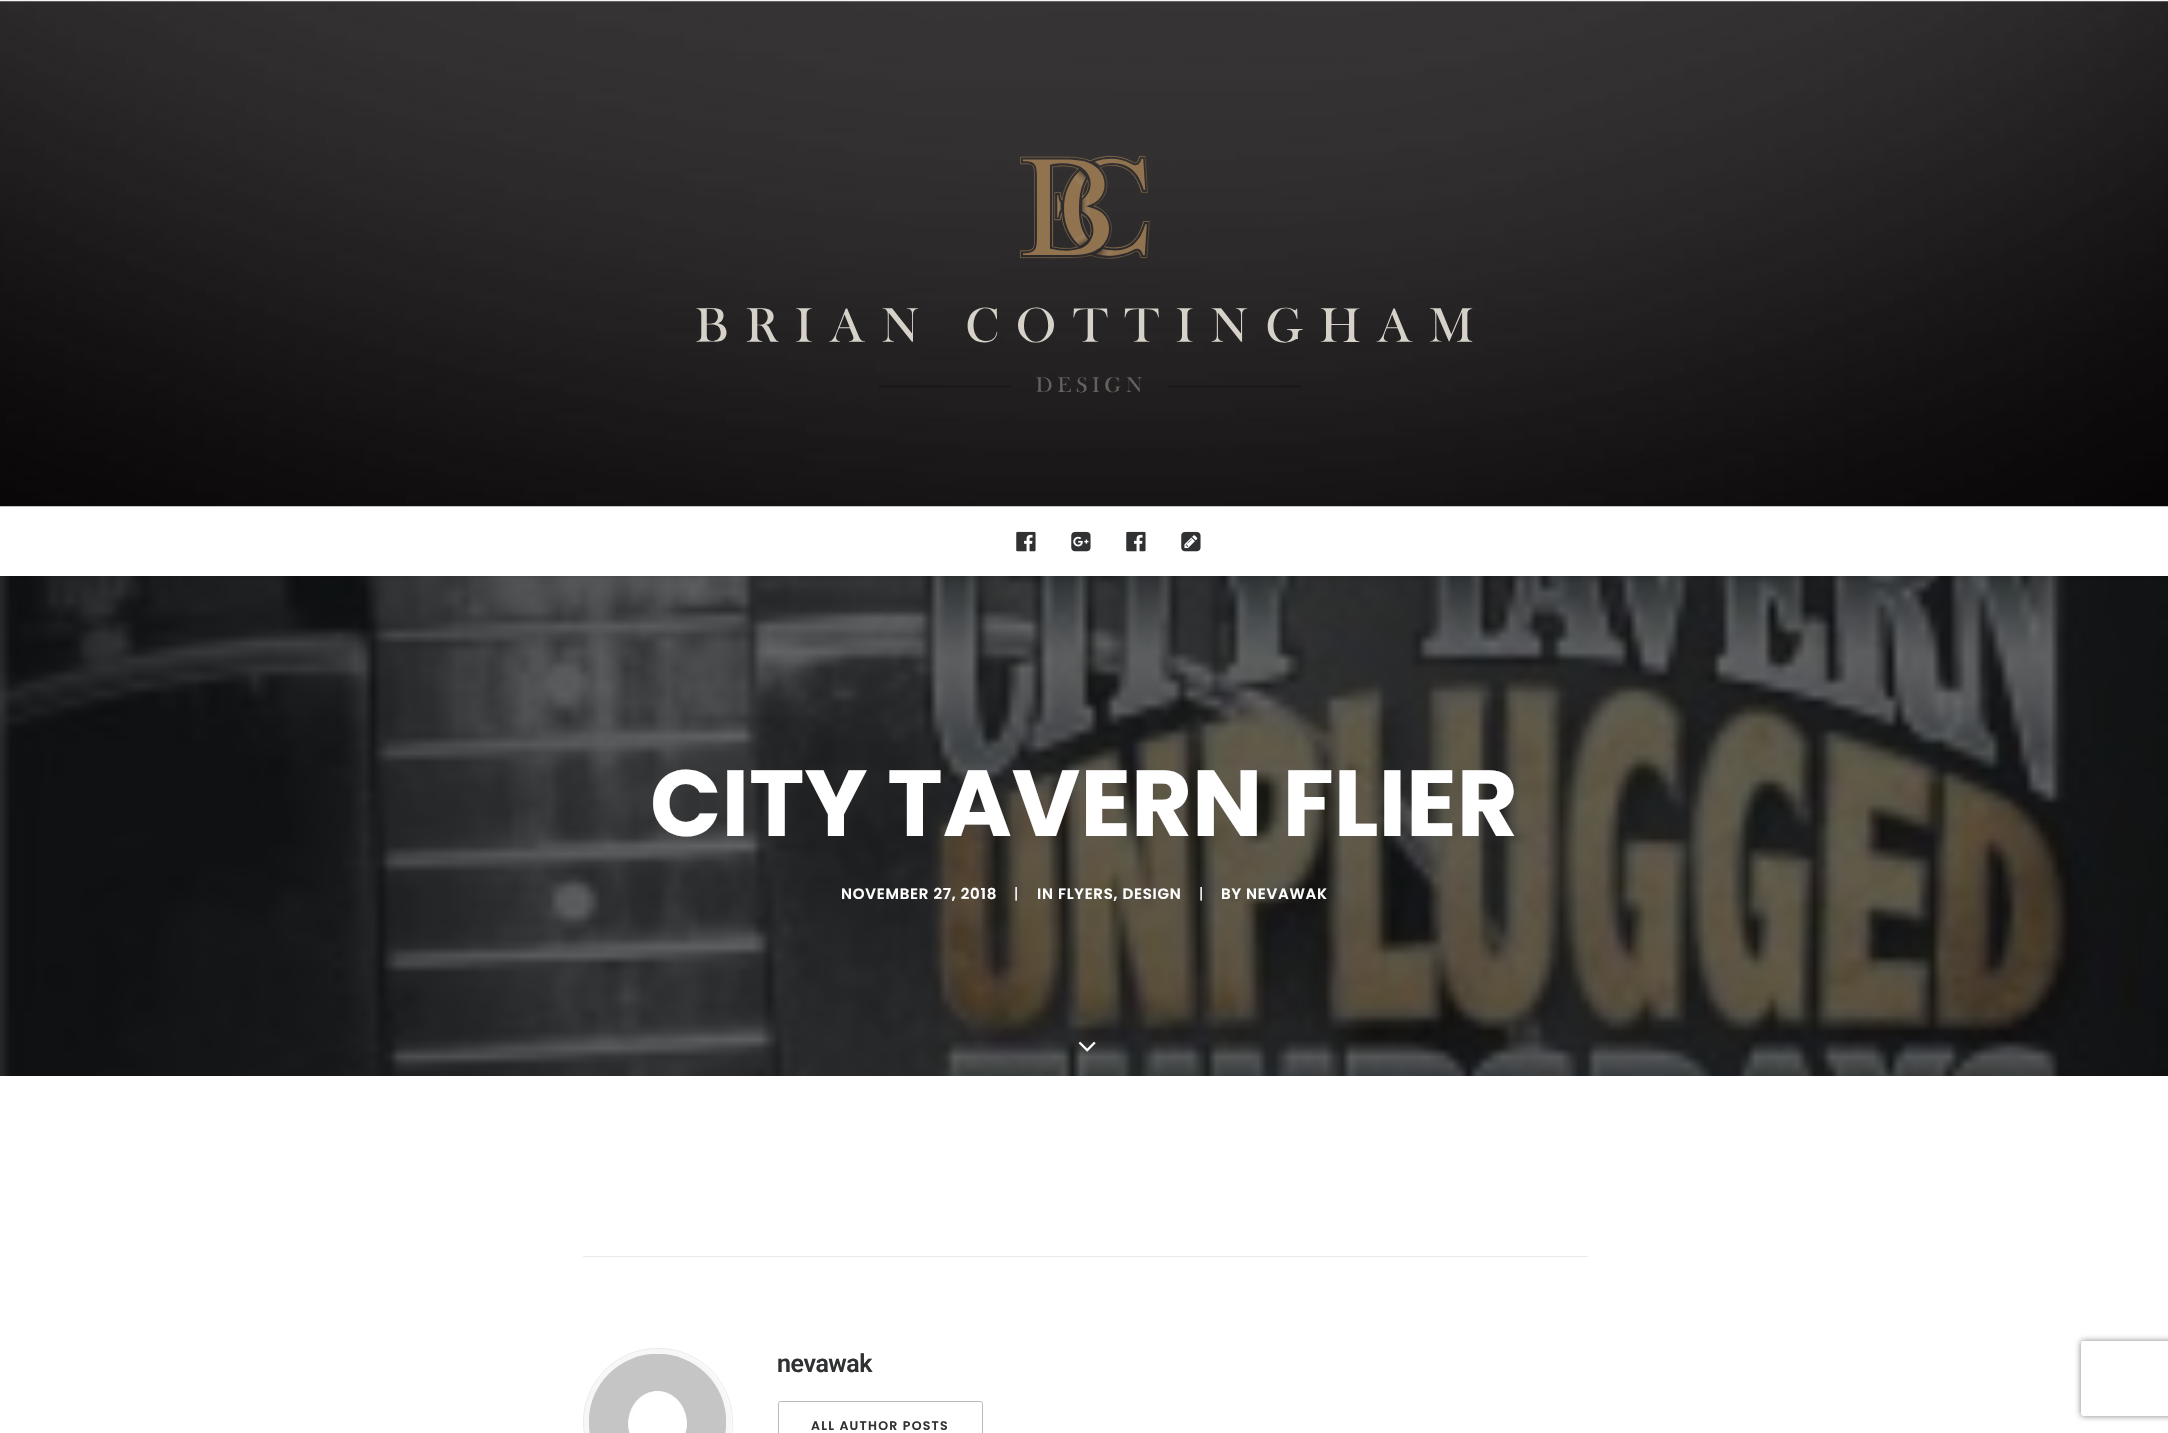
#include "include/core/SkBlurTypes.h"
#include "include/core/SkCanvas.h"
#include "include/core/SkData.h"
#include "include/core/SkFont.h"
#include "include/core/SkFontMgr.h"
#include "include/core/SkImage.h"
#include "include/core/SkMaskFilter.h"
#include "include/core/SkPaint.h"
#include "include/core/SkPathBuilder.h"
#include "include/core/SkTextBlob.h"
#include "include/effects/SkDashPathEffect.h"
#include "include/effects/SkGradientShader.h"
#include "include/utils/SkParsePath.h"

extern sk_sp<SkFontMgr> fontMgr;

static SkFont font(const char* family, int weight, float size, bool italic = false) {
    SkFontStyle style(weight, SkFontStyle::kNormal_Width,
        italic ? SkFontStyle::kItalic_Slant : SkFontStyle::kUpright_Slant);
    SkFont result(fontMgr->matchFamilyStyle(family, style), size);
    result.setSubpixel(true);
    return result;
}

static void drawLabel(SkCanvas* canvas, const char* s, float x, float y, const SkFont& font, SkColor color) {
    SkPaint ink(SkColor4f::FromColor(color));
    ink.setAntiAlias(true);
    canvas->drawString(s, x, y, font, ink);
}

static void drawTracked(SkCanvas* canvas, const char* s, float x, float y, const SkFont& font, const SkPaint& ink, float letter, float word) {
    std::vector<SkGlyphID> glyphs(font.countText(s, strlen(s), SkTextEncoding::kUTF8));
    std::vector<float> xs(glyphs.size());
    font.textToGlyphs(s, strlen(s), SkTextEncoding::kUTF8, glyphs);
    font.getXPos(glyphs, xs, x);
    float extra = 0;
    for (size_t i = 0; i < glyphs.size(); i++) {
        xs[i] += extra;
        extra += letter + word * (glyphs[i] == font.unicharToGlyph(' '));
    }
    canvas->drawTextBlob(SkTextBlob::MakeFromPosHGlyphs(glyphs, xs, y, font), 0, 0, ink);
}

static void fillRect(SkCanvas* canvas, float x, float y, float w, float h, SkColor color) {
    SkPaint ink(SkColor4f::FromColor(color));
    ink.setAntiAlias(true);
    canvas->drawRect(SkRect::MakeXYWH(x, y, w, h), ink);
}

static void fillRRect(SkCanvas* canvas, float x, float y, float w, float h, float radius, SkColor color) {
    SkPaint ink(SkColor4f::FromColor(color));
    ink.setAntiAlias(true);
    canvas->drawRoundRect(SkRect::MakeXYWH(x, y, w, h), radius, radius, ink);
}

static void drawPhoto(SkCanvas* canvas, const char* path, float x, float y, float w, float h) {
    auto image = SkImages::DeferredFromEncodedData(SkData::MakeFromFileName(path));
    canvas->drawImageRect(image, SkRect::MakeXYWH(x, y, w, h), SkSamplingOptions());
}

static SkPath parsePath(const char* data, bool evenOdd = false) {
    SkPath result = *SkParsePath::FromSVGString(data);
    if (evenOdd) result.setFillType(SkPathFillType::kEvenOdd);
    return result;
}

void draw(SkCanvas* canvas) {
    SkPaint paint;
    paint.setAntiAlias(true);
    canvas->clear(0xFFFFFFFF);
    fillRect(canvas, 0, 0, 2168, 1, 0xFFF5F5F5);
    drawPhoto(canvas, "assets/img6.png", 0, 576, 2168, 500);
    paint.setColor(0x99000000);
    paint.setMaskFilter(SkMaskFilter::MakeBlur(kNormal_SkBlurStyle, 6));
    canvas->drawRect(SkRect::MakeXYWH(10, 524, 2150, 45), paint);
    paint.setMaskFilter(nullptr);
    drawPhoto(canvas, "assets/img1.png", 0, 1, 2168, 506);
    drawPhoto(canvas, "assets/img2.png", 696, 155, 777, 238);
    fillRect(canvas, 0, 511, 2168, 65, 0xFFFFFFFF);
    drawPhoto(canvas, "assets/img3.png", 1016, 531, 20, 21);
    drawPhoto(canvas, "assets/img4.png", 1071, 531, 20, 21);
    drawPhoto(canvas, "assets/img3.png", 1126, 531, 20, 21);
    drawPhoto(canvas, "assets/img5.png", 1181, 531, 20, 21);
    SkFont font1 = font("Poppins", 700, 93.75f);
    drawLabel(canvas, "CITY TAVERN FLIER", 650, 836, font1, 0xFFFFFFFF);
    SkFont font2 = font("Poppins", 600, 15);
    paint.setColor(0xFFFFFFFF);
    drawTracked(canvas, "NOVEMBER 27, 2018", 841, 899, font2, paint, 0.75f, 0);
    SkFont font3 = font("Poppins", 400, 15);
    drawTracked(canvas, "|", 1014, 899, font3, paint, 0.75f, 0);
    drawTracked(canvas, "IN FLYERS, DESIGN", 1037, 899, font2, paint, 0.75f, 0);
    drawTracked(canvas, "|", 1199, 899, font3, paint, 0.75f, 0);
    drawTracked(canvas, "BY NEVAWAK", 1221, 899, font2, paint, 0.75f, 0);
    drawPhoto(canvas, "assets/img7.png", 1078, 1041, 18, 11);
    fillRect(canvas, 583, 1256, 1005, 1, 0xFFEAEAEA);
    fillRRect(canvas, 584, 1349, 147, 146, 73, 0xFFF7F7F7);
    paint.setStroke(true);
    paint.setStrokeWidth(1);
    paint.setColor(0xFFEAEAEA);
    canvas->drawRoundRect(SkRect::MakeXYWH(583.5f, 1348.5f, 149, 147), 73.5f, 73.5f, paint);
    drawPhoto(canvas, "assets/img8.png", 589, 1354, 137, 79);
    SkFont font4 = font("Roboto", 600, 25);
    paint.setStroke(false);
    paint.setColor(0xFF303133);
    drawTracked(canvas, "nevawak", 777, 1372, font4, paint, -0.5f, 0);
    paint.setStroke(true);
    paint.setColor(0xFFBABABA);
    canvas->drawRoundRect(SkRect::MakeXYWH(778.5f, 1401.5f, 204, 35), 2, 2, paint);
    SkFont font5 = font("Poppins", 600, 12.5f);
    paint.setStroke(false);
    paint.setColor(0xFF303133);
    drawTracked(canvas, "ALL AUTHOR POSTS", 811, 1430, font5, paint, 1.25f, 0);
    canvas->save();
    canvas->clipPath(parsePath("M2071 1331H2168V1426H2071ZM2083.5 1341H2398.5C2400 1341 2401 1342 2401 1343.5V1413.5C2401 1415 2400 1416 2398.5 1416H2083.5C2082 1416 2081 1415 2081 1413.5V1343.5C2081 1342 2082 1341 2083.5 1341Z", true), true);
    paint.setColor(0xFF808080);
    paint.setMaskFilter(SkMaskFilter::MakeBlur(kNormal_SkBlurStyle, 3));
    canvas->drawRoundRect(SkRect::MakeXYWH(2081, 1341, 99, 75), 2.5f, 2.5f, paint);
    paint.setMaskFilter(nullptr);
    canvas->restore();
}
